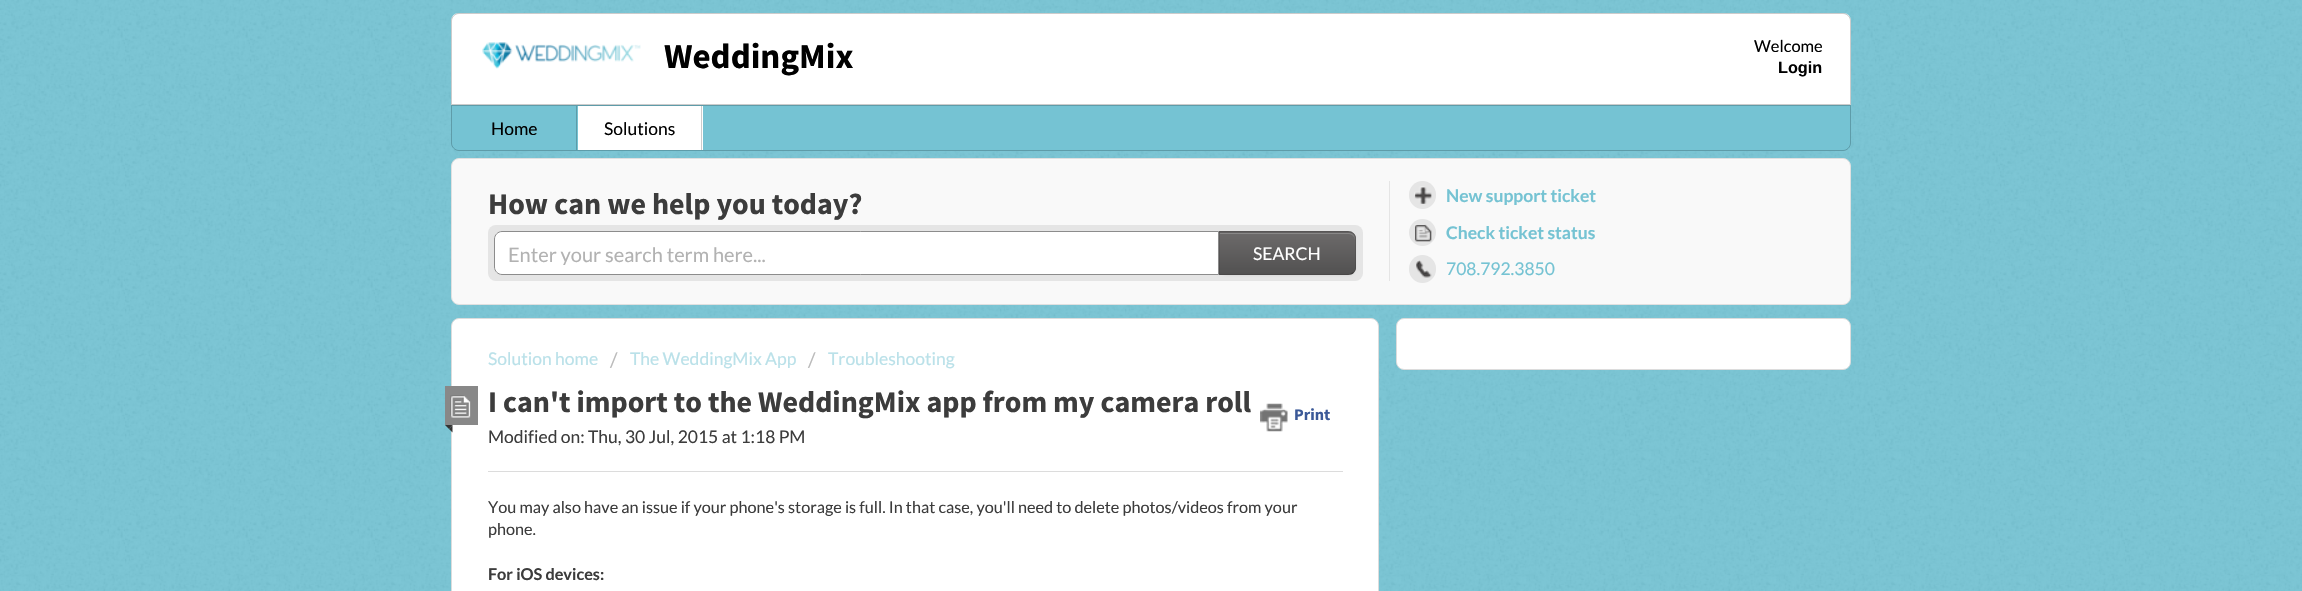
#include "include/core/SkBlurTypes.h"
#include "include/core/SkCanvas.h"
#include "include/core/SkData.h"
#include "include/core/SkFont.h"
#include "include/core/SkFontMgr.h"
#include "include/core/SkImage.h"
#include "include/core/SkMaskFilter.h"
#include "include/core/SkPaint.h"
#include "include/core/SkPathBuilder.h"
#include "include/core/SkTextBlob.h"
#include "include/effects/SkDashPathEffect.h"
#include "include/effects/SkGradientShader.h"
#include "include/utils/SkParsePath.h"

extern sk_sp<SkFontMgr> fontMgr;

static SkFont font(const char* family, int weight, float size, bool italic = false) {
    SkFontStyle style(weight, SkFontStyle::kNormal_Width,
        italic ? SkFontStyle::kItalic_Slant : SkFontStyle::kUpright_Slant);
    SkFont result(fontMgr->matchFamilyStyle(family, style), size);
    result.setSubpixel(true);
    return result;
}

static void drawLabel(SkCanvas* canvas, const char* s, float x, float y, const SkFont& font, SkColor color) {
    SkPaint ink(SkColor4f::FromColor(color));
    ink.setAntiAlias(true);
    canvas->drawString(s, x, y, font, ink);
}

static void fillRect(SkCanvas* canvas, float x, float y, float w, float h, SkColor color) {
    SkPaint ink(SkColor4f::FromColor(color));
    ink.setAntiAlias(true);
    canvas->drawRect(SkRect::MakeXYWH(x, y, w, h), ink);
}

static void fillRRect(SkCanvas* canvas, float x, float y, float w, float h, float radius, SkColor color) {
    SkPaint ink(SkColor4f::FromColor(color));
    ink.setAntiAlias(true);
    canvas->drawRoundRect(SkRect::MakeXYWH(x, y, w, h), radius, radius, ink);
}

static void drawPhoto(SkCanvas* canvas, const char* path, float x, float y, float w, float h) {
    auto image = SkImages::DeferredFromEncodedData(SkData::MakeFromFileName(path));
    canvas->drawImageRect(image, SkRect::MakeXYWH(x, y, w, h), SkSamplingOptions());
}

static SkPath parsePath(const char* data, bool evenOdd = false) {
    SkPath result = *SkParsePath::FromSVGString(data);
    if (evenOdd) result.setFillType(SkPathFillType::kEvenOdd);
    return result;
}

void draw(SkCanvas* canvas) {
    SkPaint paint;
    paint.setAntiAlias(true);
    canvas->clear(0xFF75C3D3);
    drawPhoto(canvas, "assets/img1.png", 0, 0, 2302, 591);
    paint.setColor(0xFFFFFFFF);
    canvas->drawPath(parsePath("M459 13H1843C1847.5 13 1851 16.5 1851 21V105H451V21C451 16.5 454.5 13 459 13Z"), paint);
    paint.setStroke(true);
    paint.setStrokeWidth(1);
    paint.setColor(0x33000000);
    canvas->drawPath(parsePath("M459 13.5H1843C1847 13.5 1850.5 17 1850.5 21V104.5H451.5V21C451.5 17 455 13.5 459 13.5Z"), paint);
    drawPhoto(canvas, "assets/img2.png", 482, 42, 159, 27);
    SkFont font1 = font("Source Sans Pro", 700, 35);
    drawLabel(canvas, "WeddingMix", 664, 68, font1, 0xFF000000);
    SkFont font2 = font("Lato", 400, 16.5f);
    drawLabel(canvas, "Welcome", 1754, 52, font2, 0xFF000000);
    SkFont font3 = font("Liberation Sans", 700, 16.25f);
    drawLabel(canvas, "Login", 1778, 73, font3, 0xFF000000);
    paint.setStroke(false);
    paint.setColor(0xFF75C3D3);
    canvas->drawPath(parsePath("M451 105H1851V143C1851 147.5 1847.5 151 1843 151H459C454.5 151 451 147.5 451 143Z"), paint);
    paint.setStroke(true);
    paint.setColor(0x33000000);
    canvas->drawPath(parsePath("M451.5 105.5H1850.5V143C1850.5 147 1847 150.5 1843 150.5H459C455 150.5 451.5 147 451.5 143Z"), paint);
    fillRect(canvas, 576, 106, 1, 44, 0xFF5E9CA9);
    SkFont font4 = font("Lato", 400, 17.5f);
    drawLabel(canvas, "Home", 491, 135, font4, 0xFF000000);
    fillRect(canvas, 578, 106, 125, 44, 0xFFFFFFFF);
    fillRect(canvas, 701, 106, 1, 44, 0xFFCCCCCC);
    drawLabel(canvas, "Solutions", 604, 135, font4, 0xFF000000);
    paint.setStroke(false);
    paint.setColor(0xFFF9F9F9);
    canvas->drawRoundRect(SkRect::MakeXYWH(451.5f, 158.5f, 1399, 146), 7.5f, 7.5f, paint);
    paint.setStroke(true);
    paint.setColor(0xFFE0E0E0);
    canvas->drawRoundRect(SkRect::MakeXYWH(451.5f, 158.5f, 1399, 146), 7.5f, 7.5f, paint);
    fillRect(canvas, 1389, 181, 1, 100, 0xFFE5E5E5);
    SkFont font5 = font("Source Sans Pro", 700, 30);
    drawLabel(canvas, "How can we help you today?", 488, 214, font5, 0xFF3C3C3C);
    fillRRect(canvas, 488, 225, 875, 56, 8, 0xFFE5E5E5);
    paint.setStroke(false);
    paint.setColor(0xFFFFFFFF);
    canvas->drawPath(parsePath("M502 231.5H1218.5V274.5H502C498 274.5 494.5 271 494.5 267V239C494.5 235 498 231.5 502 231.5Z"), paint);
    paint.setStroke(true);
    paint.setColor(0xFF8C8C8C);
    canvas->drawPath(parsePath("M502 231.5H1218.5V274.5H502C498 274.5 494.5 271 494.5 267V239C494.5 235 498 231.5 502 231.5Z"), paint);
    canvas->save();
    canvas->clipRect(SkRect::MakeXYWH(508, 241, 697, 24));
    SkFont font6 = font("Lato", 400, 20);
    drawLabel(canvas, "Enter your search term here...", 508, 262, font6, 0xFFB2B2B2);
    canvas->restore();
    paint.setStroke(false);
    paint.setColor(0x0D000000);
    paint.setMaskFilter(SkMaskFilter::MakeBlur(kNormal_SkBlurStyle, 1));
    canvas->drawRoundRect(SkRect::MakeXYWH(1219, 233, 137, 43), 8, 8, paint);
    paint.setMaskFilter(nullptr);
    paint.setColor(0xFF626060);
    canvas->drawPath(parsePath("M1219 231H1348C1352.5 231 1356 234.5 1356 239V267C1356 271.5 1352.5 275 1348 275H1219Z"), paint);
    canvas->save();
    canvas->clipPath(parsePath("M1219 231H1348C1352.5 231 1356 234.5 1356 239V267C1356 271.5 1352.5 275 1348 275H1219Z"), true);
    {
        const SkColor colors[] = {0xFF6C6A6A, 0xFF525151};
        const float stops[] = {0, 1};
        const SkPoint ends[] = {{1288, 233}, {1288, 274}};
        paint.setShader(SkGradientShader::MakeLinear(ends, colors, stops, 2, SkTileMode::kClamp));
        paint.setAlpha(255);
    }
    canvas->drawRect(SkRect::MakeXYWH(1219, 233, 137, 41), paint);
    canvas->restore();
    paint.setShader(nullptr);
    paint.setColor(0xFF898888);
    canvas->drawPath(parsePath("M1220 234H1349C1352 234 1355 237 1355 240V239C1355 236 1352 233 1349 233H1220Z"), paint);
    paint.setColor(0x1A000000);
    canvas->drawPath(parsePath("M1220 232L1219 231H1351L1354 234H1353C1352 233 1351 232 1349 232Z"), paint);
    canvas->drawPath(parsePath("M1354 233.5C1355 235 1356 237 1356 239V268C1356 270 1355.5 271.5 1354 273L1353 272C1354.5 271 1355 269.5 1355 268V239C1355 237 1354.5 235.5 1353.5 234Z"), paint);
    paint.setColor(0x40000000);
    canvas->drawPath(parsePath("M1219 275H1349C1351 275 1353 274 1354 273L1353 272L1350 274H1220Z"), paint);
    paint.setColor(0x1A000000);
    canvas->drawPath(parsePath("M1219 275V232H1220V274Z"), paint);
    drawLabel(canvas, "SEARCH", 1253, 260, font4, 0xFFFFFFFF);
    fillRRect(canvas, 1409, 181, 27, 28, 13.5f, 0xFFE5E5E5);
    drawPhoto(canvas, "assets/img3.png", 1414, 186, 18, 18);
    SkFont font7 = font("Lato", 700, 17.5f);
    drawLabel(canvas, "New support ticket", 1446, 202, font7, 0xFF75C3D3);
    paint.setColor(0xFFE5E5E5);
    canvas->drawCircle(1422.5f, 232.5f, 13.5f, paint);
    drawPhoto(canvas, "assets/img4.png", 1414, 224, 18, 18);
    drawLabel(canvas, "Check ticket status", 1446, 239, font7, 0xFF75C3D3);
    fillRRect(canvas, 1409, 255, 27, 28, 13.5f, 0xFFE5E5E5);
    drawPhoto(canvas, "assets/img5.png", 1416, 260, 16, 18);
    drawLabel(canvas, "708.792.3850", 1446, 275, font4, 0xFF75C3D3);
    paint.setColor(0xFFFFFFFF);
    canvas->drawRoundRect(SkRect::MakeXYWH(1396.5f, 318.5f, 454, 51), 7.5f, 7.5f, paint);
    paint.setStroke(true);
    paint.setColor(0xFFDCDCDC);
    canvas->drawRoundRect(SkRect::MakeXYWH(1396.5f, 318.5f, 454, 51), 7.5f, 7.5f, paint);
    paint.setStroke(false);
    paint.setColor(0xFFFFFFFF);
    canvas->drawRoundRect(SkRect::MakeXYWH(451.5f, 318.5f, 927, 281), 7.5f, 7.5f, paint);
    paint.setStroke(true);
    paint.setColor(0xFFDCDCDC);
    canvas->drawRoundRect(SkRect::MakeXYWH(451.5f, 318.5f, 927, 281), 7.5f, 7.5f, paint);
    drawLabel(canvas, "Solution home", 488, 365, font4, 0xFFBAE1E9);
    drawLabel(canvas, "/", 610, 367, font6, 0xFFBBBBBB);
    drawLabel(canvas, "The WeddingMix App", 630, 365, font4, 0xFFBAE1E9);
    drawLabel(canvas, "/", 808, 367, font6, 0xFFBBBBBB);
    drawLabel(canvas, "Troubleshooting", 828, 365, font4, 0xFFBAE1E9);
    fillRect(canvas, 445, 386, 33, 39, 0xFF888888);
    drawPhoto(canvas, "assets/img6.png", 450, 395, 21, 23);
    paint.setStroke(false);
    paint.setColor(0xFF333333);
    canvas->drawPath(parsePath("M445 425H452.5L449 429Z"), paint);
    canvas->drawPath(parsePath("M452.5 425V432.5L449 429Z"), paint);
    drawLabel(canvas, "I can't import to the WeddingMix app from my camera roll", 488, 412, font5, 0xFF3C3C3C);
    drawPhoto(canvas, "assets/img7.png", 1260, 403, 28, 29);
    SkFont font8 = font("Source Sans Pro", 700, 16.25f);
    drawLabel(canvas, "Print", 1294, 420, font8, 0xFF3B5998);
    drawLabel(canvas, "Modified on: Thu, 30 Jul, 2015 at 1:18 PM", 488, 443, font4, 0xFF3C3C3C);
    fillRect(canvas, 488, 471, 855, 1, 0xFFDCDCDC);
    SkFont font9 = font("Lato", 400, 16.25f);
    drawLabel(canvas, "You may also have an issue if your phone's storage is full. In that case, you'll need to delete photos/videos from your", 488, 513, font9, 0xFF3C3C3C);
    drawLabel(canvas, "phone.", 488, 535, font9, 0xFF3C3C3C);
    SkFont font10 = font("Lato", 700, 16.25f);
    drawLabel(canvas, "For iOS devices:", 488, 580, font10, 0xFF3C3C3C);
}
